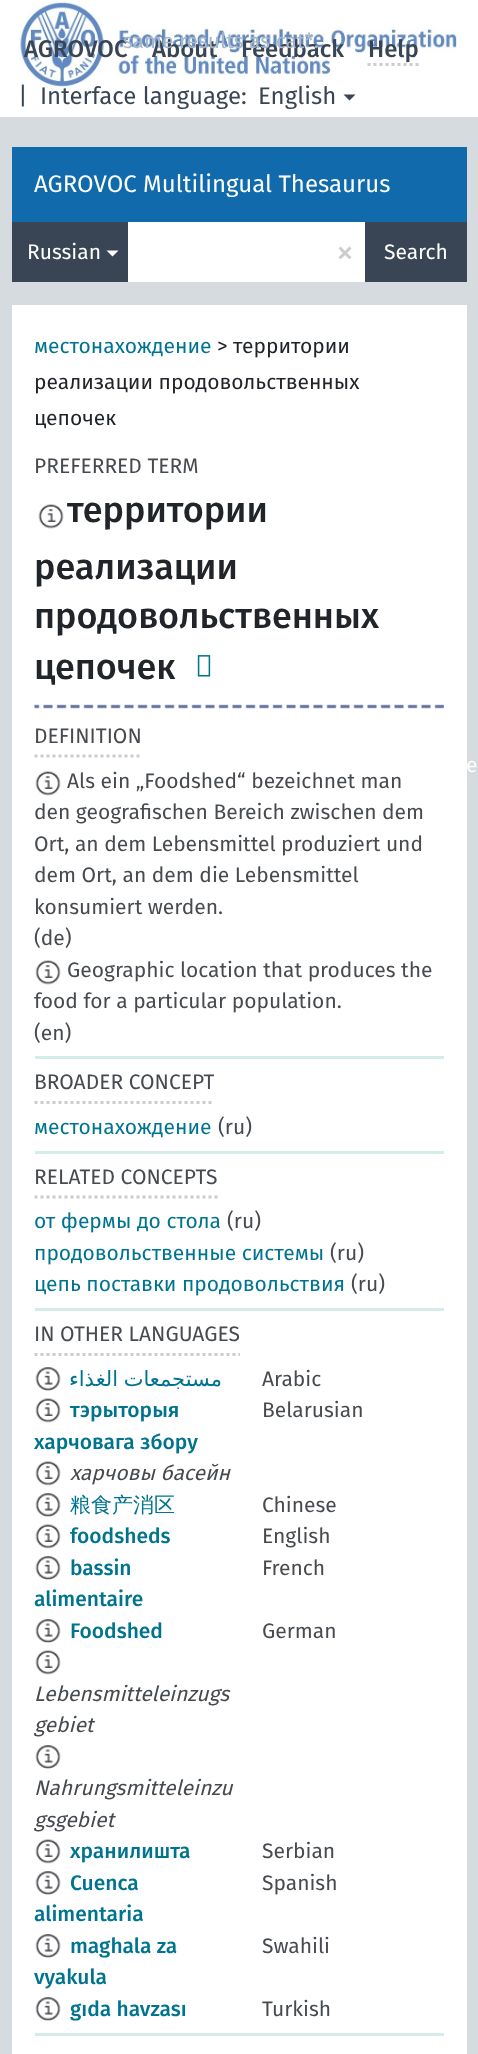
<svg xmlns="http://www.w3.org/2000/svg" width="478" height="2054">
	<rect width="100%" height="100%" fill="#D5DBDE" />
	<rect x="0" y="0" width="478" height="117" fill="#FFFFFF" />
	<image x="19" y="0" width="439" height="88" href="assets/img1.png" />
	<g font-family="Fira Sans" font-size="24" font-weight="500" fill="#394554">
		<text x="24" y="57">AGROVOC</text>
		<text x="152" y="57">About</text>
		<text x="241" y="57">Feedback</text>
	</g>
	<text x="123" y="48" font-family="Fira Sans" font-size="21" fill="#A7B7CB">same results as cat*.</text>
	<text x="368" y="57" font-family="Fira Sans" font-size="24" font-weight="500" fill="#394554">Help</text>
	<path d="M367.5 64.5H418.5" fill="none" stroke="#CCCCCC" stroke-width="3" stroke-dasharray="3 3" />
	<g font-family="Fira Sans" font-size="24" fill="#394554">
		<text x="18" y="104">|</text>
		<text x="40" y="104">Interface language:</text>
		<text x="258" y="104">English</text>
	</g>
	<path d="M343.5 94.5H355.5L349.5 100.5Z" fill="#394554" />
	<rect x="12" y="147" width="455" height="75" fill="#116AAB" />
	<text x="34" y="192" font-family="Fira Sans" font-size="24" fill="#FDFEFE">AGROVOC Multilingual Thesaurus</text>
	<rect x="12" y="222" width="116" height="60" fill="#394554" />
	<text x="27" y="259" font-family="Fira Sans" font-size="21" fill="#FDFEFE">Russian</text>
	<path d="M106.5 250.5H118.5L112.5 256.5Z" fill="#FFFFFF" />
	<rect x="128" y="222" width="237" height="60" fill="#FFFFFF" />
	<text x="336" y="264" font-family="Fira Sans" font-size="36" fill="#CCCCCC">×</text>
	<rect x="365" y="222" width="102" height="60" fill="#394554" />
	<text x="384" y="259" font-family="Fira Sans" font-size="21" fill="#FDFEFE">Search</text>
	<rect x="12" y="305" width="455" height="1749" fill="#FFFFFF" />
	<text x="34" y="353" font-family="Fira Sans" font-size="21" fill="#00748F">местонахождение</text>
	<g font-family="Fira Sans" font-size="21" fill="#212529">
		<text x="217" y="353">&gt; территории</text>
		<text x="34" y="389">реализации продовольственных</text>
		<text x="34" y="425">цепочек</text>
	</g>
	<text x="34" y="473" font-family="Fira Sans" font-size="21" fill="#474B4F">PREFERRED TERM</text>
	<image x="38" y="504" width="26" height="25" href="assets/img2.png" />
	<g font-family="Fira Sans" font-size="36" font-weight="500" fill="#212529">
		<text x="67" y="522">территории</text>
		<text x="34" y="579">реализации</text>
		<text x="34" y="628">продовольственных</text>
		<text x="34" y="679">цепочек</text>
	</g>
	<image x="197" y="655" width="14" height="22" href="assets/img3.png" />
	<image x="34" y="704" width="410" height="5" href="assets/img4.png" />
	<path d="M34.5 756H142.5" fill="none" stroke="#CCCCCC" stroke-width="3" stroke-dasharray="3 3" />
	<text x="34" y="743" font-family="Fira Sans" font-size="21" fill="#474B4F">DEFINITION</text>
	<text x="466" y="772" font-family="Fira Sans" font-size="21" fill="#FDFEFE">e</text>
	<rect x="35" y="1056" width="409" height="3" fill="#D4EDEB" />
	<image x="35" y="771" width="26" height="25" href="assets/img2.png" />
	<g font-family="Fira Sans" font-size="21" fill="#474B4F">
		<text x="67" y="788">Als ein „Foodshed“ bezeichnet man</text>
		<text x="34" y="819">den geografischen Bereich zwischen dem</text>
		<text x="34" y="851">Ort, an dem Lebensmittel produziert und</text>
		<text x="34" y="882">dem Ort, an dem die Lebensmittel</text>
		<text x="34" y="914">konsumiert werden.</text>
		<text x="34" y="945">(de)</text>
	</g>
	<image x="35" y="960" width="26" height="25" href="assets/img2.png" />
	<g font-family="Fira Sans" font-size="21" fill="#474B4F">
		<text x="67" y="977">Geographic location that produces the</text>
		<text x="34" y="1008">food for a particular population.</text>
		<text x="34" y="1040">(en)</text>
	</g>
	<path d="M34.5 1102.5H214.5" fill="none" stroke="#CCCCCC" stroke-width="3" stroke-dasharray="3 3" />
	<text x="34" y="1089" font-family="Fira Sans" font-size="21" fill="#474B4F">BROADER CONCEPT</text>
	<rect x="35" y="1151" width="409" height="3" fill="#D4EDEB" />
	<text x="34" y="1134" font-family="Fira Sans" font-size="21" fill="#00748F">местонахождение</text>
	<text x="218" y="1134" font-family="Fira Sans" font-size="21" fill="#474B4F">(ru)</text>
	<path d="M34.5 1197H217.5" fill="none" stroke="#CCCCCC" stroke-width="3" stroke-dasharray="3 3" />
	<text x="34" y="1184" font-family="Fira Sans" font-size="21" fill="#474B4F">RELATED CONCEPTS</text>
	<rect x="35" y="1308" width="409" height="3" fill="#D4EDEB" />
	<text x="34" y="1228" font-family="Fira Sans" font-size="21" fill="#00748F">от фермы до стола</text>
	<text x="227" y="1228" font-family="Fira Sans" font-size="21" fill="#474B4F">(ru)</text>
	<text x="34" y="1260" font-family="Fira Sans" font-size="21" fill="#00748F">продовольственные системы</text>
	<text x="330" y="1260" font-family="Fira Sans" font-size="21" fill="#474B4F">(ru)</text>
	<text x="34" y="1291" font-family="Fira Sans" font-size="21" fill="#00748F">цепь поставки продовольствия</text>
	<text x="351" y="1291" font-family="Fira Sans" font-size="21" fill="#474B4F">(ru)</text>
	<path d="M34.5 1354.5H240" fill="none" stroke="#CCCCCC" stroke-width="3" stroke-dasharray="3 3" />
	<text x="34" y="1341" font-family="Fira Sans" font-size="21" fill="#474B4F">IN OTHER LANGUAGES</text>
	<rect x="35" y="2033" width="409" height="3" fill="#D4EDEB" />
	<image x="35" y="1367" width="26" height="24" href="assets/img5.png" />
	<text x="222" y="1386" word-spacing="-1" font-family="DejaVu Sans" font-size="21" direction="rtl" fill="#00748F">مستجمعات الغذاء</text>
	<text x="262" y="1386" font-family="Fira Sans" font-size="21" fill="#474B4F">Arabic</text>
	<image x="35" y="1398" width="26" height="25" href="assets/img2.png" />
	<g font-family="Fira Sans" font-size="21" font-weight="500" fill="#00748F">
		<text x="70" y="1417">тэрыторыя</text>
		<text x="34" y="1449">харчовага збору</text>
	</g>
	<text x="262" y="1417" font-family="Fira Sans" font-size="21" fill="#474B4F">Belarusian</text>
	<image x="35" y="1461" width="26" height="25" href="assets/img2.png" />
	<text x="70" y="1480" font-family="Fira Sans" font-size="21" font-style="italic" fill="#474B4F">харчовы басейн</text>
	<image x="35" y="1493" width="26" height="24" href="assets/img5.png" />
	<text x="70" y="1512" font-family="WenQuanYi Zen Hei" font-size="21" font-weight="500" fill="#00748F">粮食产消区</text>
	<text x="262" y="1512" font-family="Fira Sans" font-size="21" fill="#474B4F">Chinese</text>
	<image x="35" y="1524" width="26" height="25" href="assets/img2.png" />
	<text x="70" y="1543" font-family="Fira Sans" font-size="21" font-weight="500" fill="#00748F">foodsheds</text>
	<text x="262" y="1543" font-family="Fira Sans" font-size="21" fill="#474B4F">English</text>
	<image x="35" y="1556" width="26" height="24" href="assets/img5.png" />
	<g font-family="Fira Sans" font-size="21" font-weight="500" fill="#00748F">
		<text x="70" y="1575">bassin</text>
		<text x="34" y="1606">alimentaire</text>
	</g>
	<text x="262" y="1575" font-family="Fira Sans" font-size="21" fill="#474B4F">French</text>
	<image x="35" y="1619" width="26" height="24" href="assets/img5.png" />
	<text x="70" y="1638" font-family="Fira Sans" font-size="21" font-weight="500" fill="#00748F">Foodshed</text>
	<text x="262" y="1638" font-family="Fira Sans" font-size="21" fill="#474B4F">German</text>
	<image x="35" y="1650" width="26" height="25" href="assets/img2.png" />
	<g font-family="Fira Sans" font-size="21" font-style="italic" fill="#474B4F">
		<text x="34" y="1701">Lebensmitteleinzugs</text>
		<text x="34" y="1732">gebiet</text>
	</g>
	<image x="35" y="1745" width="26" height="24" href="assets/img5.png" />
	<g font-family="Fira Sans" font-size="21" font-style="italic" fill="#474B4F">
		<text x="34" y="1795">Nahrungsmitteleinzu</text>
		<text x="34" y="1827">gsgebiet</text>
	</g>
	<image x="35" y="1839" width="26" height="25" href="assets/img2.png" />
	<text x="70" y="1858" font-family="Fira Sans" font-size="21" font-weight="500" fill="#00748F">хранилишта</text>
	<text x="262" y="1858" font-family="Fira Sans" font-size="21" fill="#474B4F">Serbian</text>
	<image x="35" y="1871" width="26" height="24" href="assets/img5.png" />
	<g font-family="Fira Sans" font-size="21" font-weight="500" fill="#00748F">
		<text x="70" y="1890">Cuenca</text>
		<text x="34" y="1921">alimentaria</text>
	</g>
	<text x="262" y="1890" font-family="Fira Sans" font-size="21" fill="#474B4F">Spanish</text>
	<image x="35" y="1934" width="26" height="24" href="assets/img5.png" />
	<g font-family="Fira Sans" font-size="21" font-weight="500" fill="#00748F">
		<text x="70" y="1953">maghala za</text>
		<text x="34" y="1984">vyakula</text>
	</g>
	<text x="262" y="1953" font-family="Fira Sans" font-size="21" fill="#474B4F">Swahili</text>
	<image x="35" y="1997" width="26" height="24" href="assets/img5.png" />
	<text x="70" y="2016" font-family="Fira Sans" font-size="21" font-weight="500" fill="#00748F">gıda havzası</text>
	<text x="262" y="2016" font-family="Fira Sans" font-size="21" fill="#474B4F">Turkish</text>
</svg>
